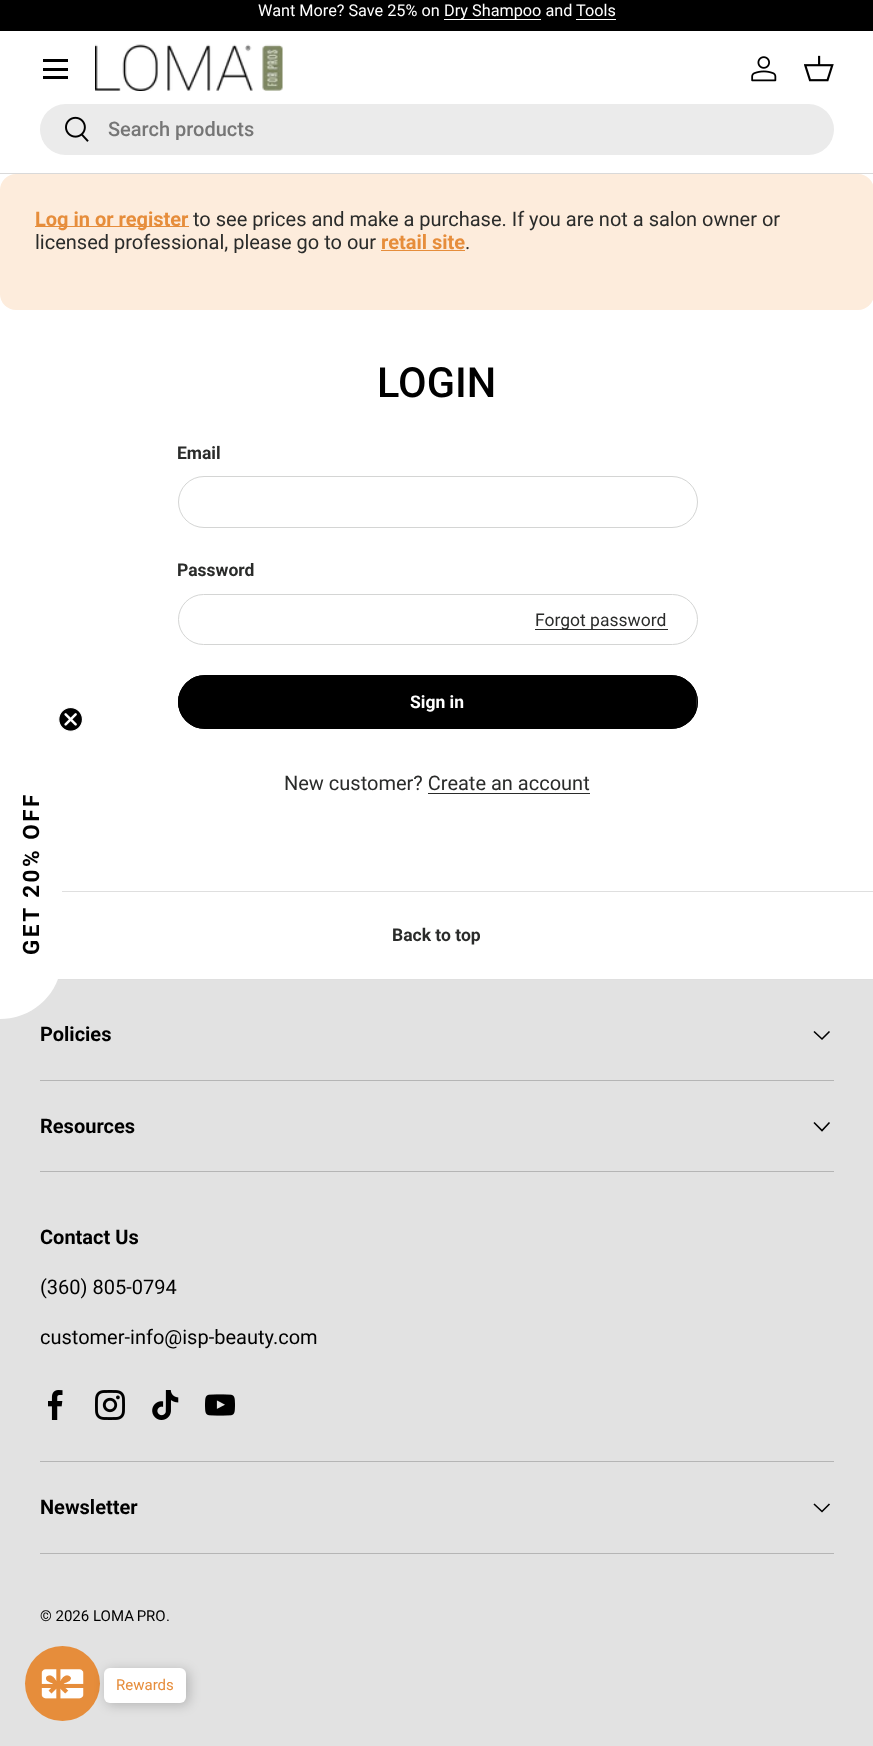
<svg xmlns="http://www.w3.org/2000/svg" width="873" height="1746">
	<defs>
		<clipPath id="clip1"><rect x="178" y="675" width="520" height="54" rx="27" /></clipPath>
		<linearGradient id="g1" gradientUnits="userSpaceOnUse" x1="-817" y1="518" x2="657" y2="886"><stop offset="0.6" stop-color="#2E2E2E" /><stop offset="0.6" stop-color="#000000" /><stop offset="1" stop-color="#000000" /></linearGradient>
	</defs>
	<rect width="100%" height="100%" fill="#FFFFFF" />
	<rect x="0" y="0" width="873" height="31" fill="#000000" />
	<text x="258" y="16" font-family="Roboto" font-size="16.25" fill="#FFFFFF">Want More? Save 25% on</text>
	<rect x="444" y="19" width="97" height="1" fill="#FFFFFF" />
	<g font-family="Roboto" font-size="16.25" fill="#FFFFFF">
		<text x="444" y="16">Dry Shampoo and</text>
		<text x="576" y="16">Tools</text>
	</g>
	<rect x="576" y="19" width="40" height="1" fill="#FFFFFF" />
	<rect x="0" y="173" width="873" height="1" fill="#D9D9D9" />
	<rect x="43" y="59" width="25" height="3" fill="#000000" />
	<rect x="43" y="76" width="25" height="3" fill="#000000" />
	<rect x="43" y="68" width="25" height="3" fill="#000000" />
	<image x="95" y="44" width="188" height="47" href="assets/img1.png" />
	<image x="751" y="56" width="26" height="26" href="assets/img2.png" />
	<image x="804" y="55" width="30" height="27" href="assets/img3.png" />
	<rect x="40" y="104" width="794" height="51" rx="25.5" fill="#EBEBEB" />
	<image x="65" y="116" width="24" height="26" href="assets/img4.png" />
	<text x="108" y="136" font-family="Roboto" font-size="20" font-weight="500" fill="#767676">Search products</text>
	<rect x="0" y="174" width="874" height="136" rx="16" fill="#FDECDC" />
	<rect x="35" y="226" width="154" height="1" fill="#E68D3B" />
	<text x="35" y="226" font-family="Roboto" font-size="20" font-weight="700" fill="#E68D3B">Log in or register</text>
	<g font-family="Roboto" font-size="20" fill="#2A2B2A">
		<text x="193" y="226">to see prices and make a purchase. If you are not a salon owner or</text>
		<text x="35" y="249">licensed professional, please go to our</text>
	</g>
	<text x="381" y="249" font-family="Roboto" font-size="20" font-weight="700" fill="#E68D3B">retail site</text>
	<rect x="381" y="250" width="84" height="1" fill="#E68D3B" />
	<text x="465" y="249" font-family="Roboto" font-size="20" fill="#2A2B2A">.</text>
	<text x="377" y="397" font-family="Roboto" font-size="41.5" font-weight="500" fill="#000000">LOGIN</text>
	<text x="177" y="459" font-family="Roboto" font-size="17.5" font-weight="700" fill="#2A2B2A">Email</text>
	<rect x="178.5" y="476.5" width="519" height="51" rx="25.5" fill="none" stroke="#D4D5D4" />
	<text x="177" y="576" font-family="Roboto" font-size="17.5" font-weight="700" fill="#2A2B2A">Password</text>
	<rect x="178.5" y="594.5" width="519" height="50" rx="25" fill="none" stroke="#D4D5D4" />
	<rect x="535" y="629" width="133" height="1" fill="#2A2B2A" />
	<text x="535" y="626" font-family="Roboto" font-size="17.5" fill="#2A2B2A">Forgot password</text>
	<rect x="178" y="675" width="520" height="54" rx="27" fill="#2E2E2E" />
	<g clip-path="url(#clip1)">
		<rect x="178" y="676" width="518" height="52" fill="url(#g1)" />
	</g>
	<rect x="178.5" y="675.5" width="519" height="53" rx="26.5" fill="none" stroke="#000000" />
	<text x="410" y="708" font-family="Roboto" font-size="17.5" font-weight="700" fill="#FFFFFF">Sign in</text>
	<text x="284" y="790" font-family="Roboto" font-size="20" fill="#2A2B2A">New customer? Create an account</text>
	<rect x="428" y="793" width="162" height="1" fill="#2A2B2A" />
	<rect x="57" y="979" width="816" height="1" fill="#DFDFDF" />
	<rect x="0" y="980" width="873" height="766" fill="#E2E2E2" />
	<path d="M0 1019V727C35 727 62 755 62 789V957C62 991 35 1019 0 1019Z" fill="#FFFFFF" />
	<image x="58" y="707" width="25" height="25" href="assets/img5.png" />
	<text x="39" y="955" transform="rotate(-90 39 955)" font-family="Roboto" font-size="22.5" font-weight="700" letter-spacing="2.5" fill="#000000">GET 20% OFF</text>
	<rect x="62" y="891" width="811" height="1" fill="#DFDFDF" />
	<text x="392" y="941" font-family="Roboto" font-size="17.5" font-weight="700" fill="#2A2B2A">Back to top</text>
	<rect x="40" y="1080" width="794" height="1" fill="#B5B5B5" />
	<text x="40" y="1041" font-family="Roboto" font-size="20" font-weight="700" fill="#000000">Policies</text>
	<path d="M829.5 1031.5L822 1039L814 1031.5" fill="none" stroke="#000000" stroke-width="1.6" />
	<rect x="40" y="1171" width="794" height="1" fill="#B5B5B5" />
	<text x="40" y="1133" font-family="Roboto" font-size="20" font-weight="700" fill="#000000">Resources</text>
	<path d="M829.5 1122.5L822 1130.5L814 1122.5" fill="none" stroke="#000000" stroke-width="1.6" />
	<text x="40" y="1244" font-family="Roboto" font-size="20" font-weight="700" fill="#000000">Contact Us</text>
	<g font-family="Roboto" font-size="20" fill="#000000">
		<text x="40" y="1294">(360) 805-0794</text>
		<text x="40" y="1344">customer-info@isp-beauty.com</text>
	</g>
	<image x="48" y="1390" width="15" height="30" href="assets/img6.png" />
	<image x="95" y="1390" width="30" height="30" href="assets/img7.png" />
	<image x="152" y="1390" width="27" height="30" href="assets/img8.png" />
	<image x="205" y="1394" width="30" height="22" href="assets/img9.png" />
	<rect x="40" y="1461" width="794" height="1" fill="#B5B5B5" />
	<rect x="40" y="1553" width="794" height="1" fill="#B5B5B5" />
	<text x="40" y="1514" font-family="Roboto" font-size="20" font-weight="700" fill="#000000">Newsletter</text>
	<path d="M829.5 1504L822 1511.5L814 1504" fill="none" stroke="#000000" stroke-width="1.6" />
	<g font-family="Roboto" font-size="15" fill="#000000">
		<text x="40" y="1621">© 2026</text>
		<text x="93" y="1621" word-spacing="-1">LOMA PRO</text>
		<text x="166" y="1621">.</text>
	</g>
	<circle cx="62.5" cy="1683.5" r="37.5" fill="#E68D3B" />
	<image x="41" y="1669" width="43" height="30" href="assets/img10.png" />
	<rect x="106" y="1670" width="83" height="35" rx="6" fill="#000000" fill-opacity="0.2" filter="blur(6px)" />
	<rect x="104" y="1668" width="82" height="35" rx="6" fill="#FFFFFF" />
	<text x="116" y="1690" font-family="Roboto" font-size="15" fill="#E68D3B">Rewards</text>
</svg>
